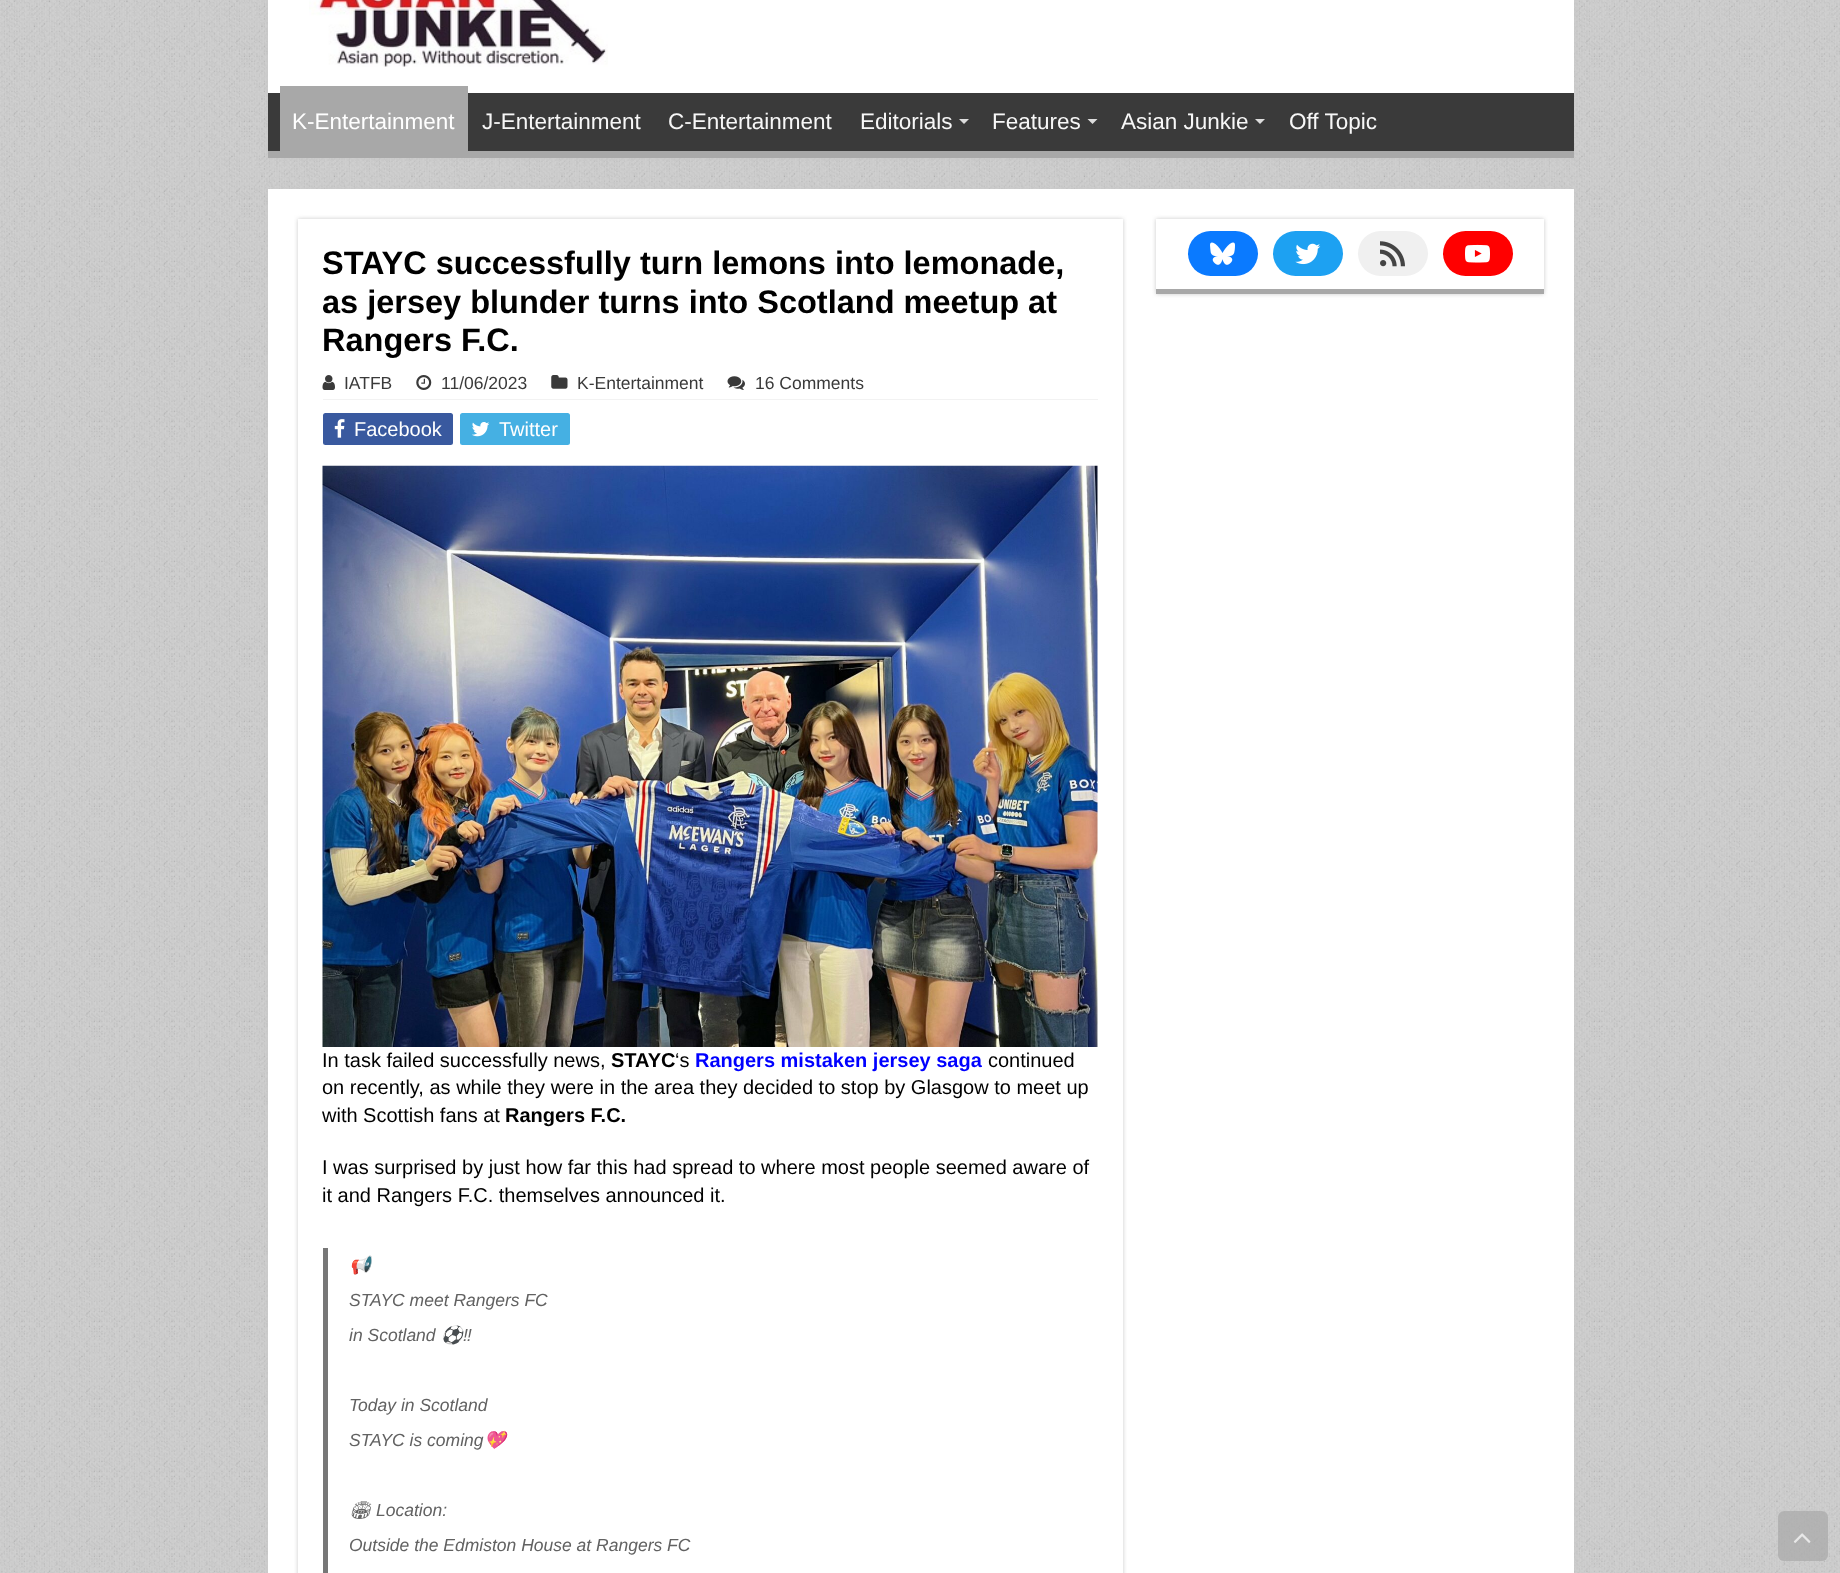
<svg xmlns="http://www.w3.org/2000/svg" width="1840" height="1573">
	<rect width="100%" height="100%" fill="#CACACA" />
	<image x="0" y="0" width="1840" height="1573" href="assets/img1.png" />
	<rect x="268" y="-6" width="1306" height="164" fill="#CACACA" filter="blur(2px)" />
	<rect x="268" y="0" width="1306" height="93" fill="#FFFFFF" />
	<image x="309" y="0" width="299" height="67" href="assets/img2.png" />
	<rect x="268" y="93" width="1306" height="58" fill="#3A3A3A" />
	<rect x="268" y="151" width="1306" height="7" fill="#A8A8A8" />
	<rect x="280" y="86" width="188" height="65" fill="#A8A8A8" />
	<text x="292" y="129" font-family="Liberation Sans" font-size="22.5" fill="#FFFFFF">K-Entertainment</text>
	<g font-family="Liberation Sans" font-size="22.5" fill="#F7F7F7">
		<text x="482" y="129">J-Entertainment</text>
		<text x="668" y="129">C-Entertainment</text>
		<text x="860" y="129">Editorials</text>
	</g>
	<path d="M959 119H969L964 124Z" fill="#DDDDDD" />
	<text x="992" y="129" font-family="Liberation Sans" font-size="22.5" fill="#F7F7F7">Features</text>
	<path d="M1087.5 119H1097.5L1092.5 124Z" fill="#DDDDDD" />
	<text x="1121" y="129" font-family="Liberation Sans" font-size="22.5" fill="#F7F7F7">Asian Junkie</text>
	<path d="M1255 119H1265L1260 124Z" fill="#DDDDDD" />
	<text x="1289" y="129" font-family="Liberation Sans" font-size="22.5" fill="#F7F7F7">Off Topic</text>
	<rect x="268" y="189" width="1306" height="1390" fill="#CACACA" filter="blur(2px)" />
	<rect x="268" y="189" width="1306" height="1384" fill="#FFFFFF" />
	<rect x="298" y="219" width="825" height="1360" fill="#CACACA" filter="blur(2px)" />
	<rect x="298" y="219" width="825" height="1354" fill="#FFFFFF" />
	<g font-family="Liberation Sans" font-size="32.5" font-weight="700" fill="#000000">
		<text x="322" y="274">STAYC successfully turn lemons into lemonade,</text>
		<text x="322" y="313">as jersey blunder turns into Scotland meetup at</text>
		<text x="322" y="351">Rangers F.C.</text>
	</g>
	<rect x="323" y="399" width="775" height="1" fill="#F2F2F2" />
	<image x="322" y="375" width="13" height="15" href="assets/img3.png" />
	<text x="344" y="389" font-family="Liberation Sans" font-size="17.5" fill="#3A3A3A">IATFB</text>
	<image x="416" y="375" width="16" height="15" href="assets/img4.png" />
	<text x="441" y="389" font-family="Liberation Sans" font-size="17.5" fill="#3A3A3A">11/06/2023</text>
	<image x="551" y="375" width="17" height="14" href="assets/img5.png" />
	<text x="577" y="389" font-family="Liberation Sans" font-size="17.5" fill="#3A3A3A">K-Entertainment</text>
	<image x="727" y="376" width="18" height="14" href="assets/img6.png" />
	<text x="755" y="389" font-family="Liberation Sans" font-size="17.5" fill="#3A3A3A">16 Comments</text>
	<rect x="323" y="413" width="130" height="32" rx="2.5" fill="#39599F" />
	<image x="334" y="419" width="11" height="19" href="assets/img7.png" />
	<text x="354" y="436" font-family="Liberation Sans" font-size="20" fill="#FFFFFF">Facebook</text>
	<rect x="460" y="413" width="110" height="32" rx="2.5" fill="#45B0E3" />
	<image x="472" y="422" width="18" height="15" href="assets/img8.png" />
	<text x="499" y="436" font-family="Liberation Sans" font-size="20" fill="#FFFFFF">Twitter</text>
	<image x="322" y="465" width="776" height="582" href="assets/img9.png" />
	<text x="322" y="1067" font-family="Liberation Sans" font-size="20" fill="#000000">In task failed successfully news,</text>
	<text x="611" y="1067" font-family="Liberation Sans" font-size="20" font-weight="700" fill="#000000">STAYC</text>
	<text x="675" y="1067" font-family="Liberation Sans" font-size="20" fill="#000000">‘s</text>
	<text x="695" y="1067" font-family="Liberation Sans" font-size="20" font-weight="700" fill="#0000FF">Rangers mistaken jersey saga</text>
	<g font-family="Liberation Sans" font-size="20" fill="#000000">
		<text x="988" y="1067">continued</text>
		<text x="322" y="1094">on recently, as while they were in the area they decided to stop by Glasgow to meet up</text>
		<text x="322" y="1122">with Scottish fans at</text>
	</g>
	<text x="505" y="1122" font-family="Liberation Sans" font-size="20" font-weight="700" fill="#000000">Rangers F.C.</text>
	<g font-family="Liberation Sans" font-size="20" fill="#000000">
		<text x="322" y="1174">I was surprised by just how far this had spread to where most people seemed aware of</text>
		<text x="322" y="1202">it and Rangers F.C. themselves announced it.</text>
	</g>
	<rect x="323" y="1248" width="5" height="325" fill="#777777" />
	<text x="349" y="1271" font-family="Noto Color Emoji" font-size="17.5" font-style="italic" fill="#626262">📢</text>
	<g font-family="Liberation Sans" font-size="17.5" font-style="italic" fill="#626262">
		<text x="349" y="1306">STAYC meet Rangers FC</text>
		<text x="349" y="1341">in Scotland</text>
	</g>
	<text x="441" y="1341" font-family="Noto Color Emoji" font-size="17.5" font-style="italic" fill="#626262">⚽</text>
	<g font-family="Liberation Sans" font-size="17.5" font-style="italic" fill="#626262">
		<text x="463" y="1341">‼</text>
		<text x="349" y="1411">Today in Scotland</text>
		<text x="349" y="1446">STAYC is coming</text>
	</g>
	<text x="484" y="1446" font-family="Noto Color Emoji" font-size="17.5" font-style="italic" fill="#626262">💖</text>
	<text x="349" y="1516" font-family="Noto Emoji" font-size="17.5" font-style="italic" fill="#626262">🏟</text>
	<g font-family="Liberation Sans" font-size="17.5" font-style="italic" fill="#626262">
		<text x="376" y="1516">Location:</text>
		<text x="349" y="1551">Outside the Edmiston House at Rangers FC</text>
	</g>
	<rect x="1156" y="219" width="388" height="75" fill="#CACACA" filter="blur(2px)" />
	<rect x="1156" y="219" width="388" height="70" fill="#FFFFFF" />
	<rect x="1156" y="289" width="388" height="5" fill="#A8A8A8" />
	<rect x="1188" y="231" width="70" height="45" rx="22.5" fill="#0A7AFF" />
	<image x="1210" y="242" width="25" height="23" href="assets/img10.png" />
	<rect x="1273" y="231" width="70" height="45" rx="22.5" fill="#1DA1F2" />
	<image x="1295" y="243" width="26" height="22" href="assets/img11.png" />
	<rect x="1358" y="231" width="70" height="45" rx="22.5" fill="#F0F0F0" />
	<image x="1380" y="241" width="25" height="26" href="assets/img12.png" />
	<rect x="1443" y="231" width="70" height="45" rx="22.5" fill="#FF0000" />
	<image x="1465" y="244" width="25" height="19" href="assets/img13.png" />
	<rect x="1778" y="1511" width="50" height="50" rx="6" fill="#A8A8A8" fill-opacity="0.7" />
	<image x="1793" y="1533" width="18" height="10" href="assets/img14.png" />
</svg>
